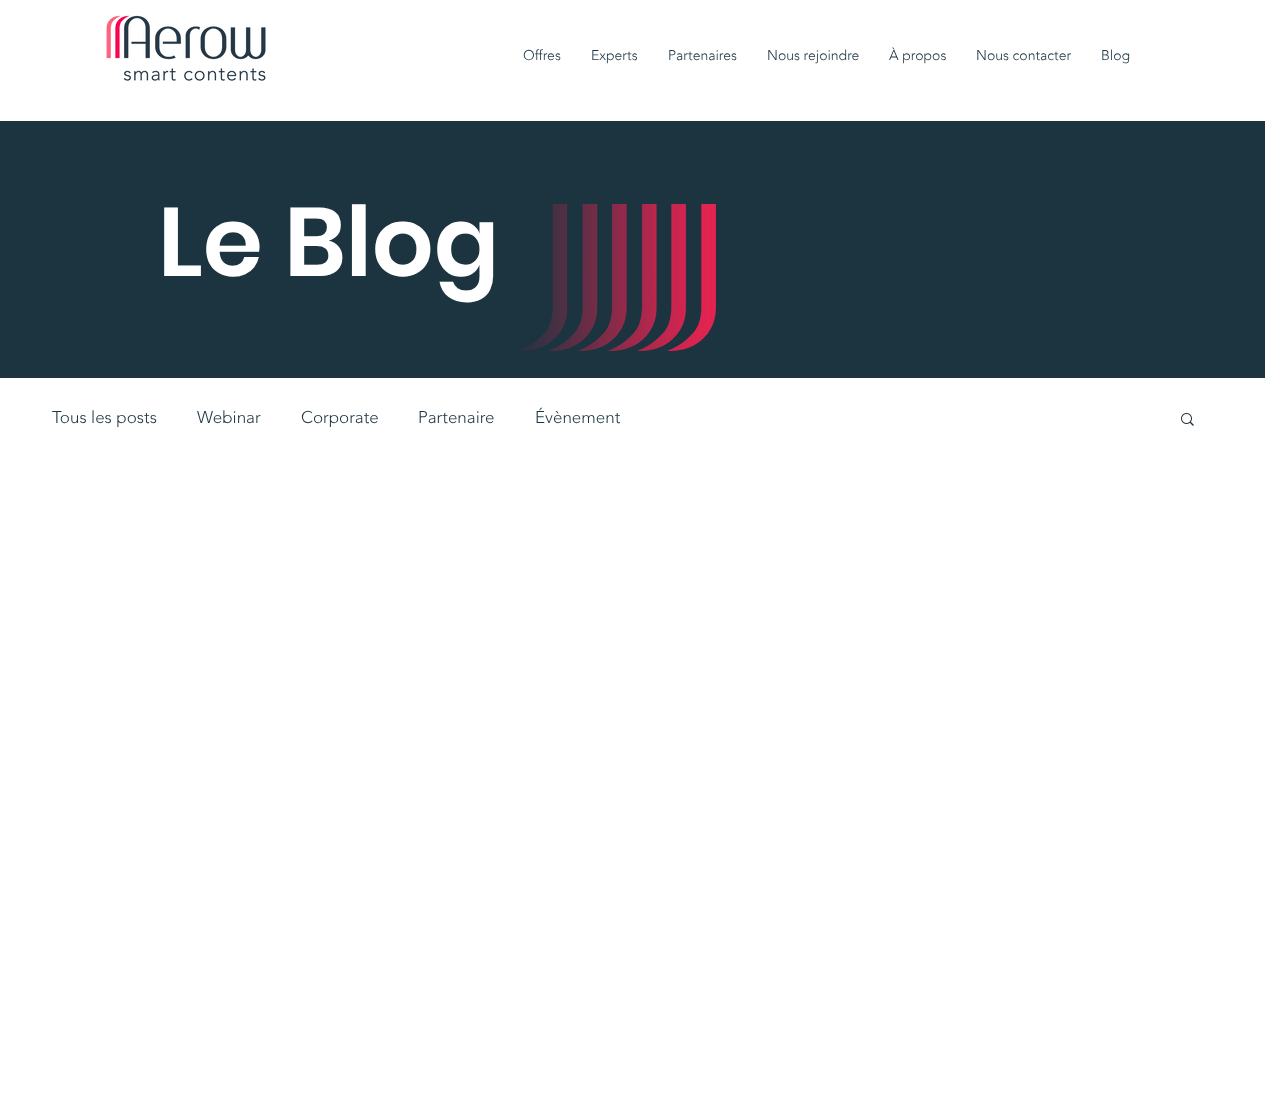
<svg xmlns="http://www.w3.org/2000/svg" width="1265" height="1120">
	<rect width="100%" height="100%" fill="#FFFFFF" />
	<image x="106" y="15" width="160" height="66" href="assets/img1.png" />
	<g font-family="'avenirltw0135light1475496'" font-size="14" font-weight="300" fill="#1B3440">
		<text x="523" y="60">Offres</text>
		<text x="591" y="60">Experts</text>
		<text x="668" y="60">Partenaires</text>
		<text x="767" y="60">Nous rejoindre</text>
		<text x="889" y="60">À propos</text>
		<text x="976" y="60">Nous contacter</text>
		<text x="1101" y="60">Blog</text>
	</g>
	<rect x="0" y="121" width="1265" height="257" fill="#1B3440" />
	<text x="158" y="276" font-family="Poppins" font-size="97" font-weight="600" fill="#FFFFFF">Le Blog</text>
	<image x="519" y="204" width="197" height="147" href="assets/img2.png" />
	<g font-family="'avenirltw0135light1475496'" font-size="17" font-weight="300" fill="#1B3440">
		<text x="52" y="423">Tous les posts</text>
		<text x="197" y="423">Webinar</text>
		<text x="301" y="423">Corporate</text>
		<text x="418" y="423">Partenaire</text>
		<text x="535" y="423">Évènement</text>
	</g>
	<image x="1181" y="413" width="13" height="13" href="assets/img3.png" />
</svg>
